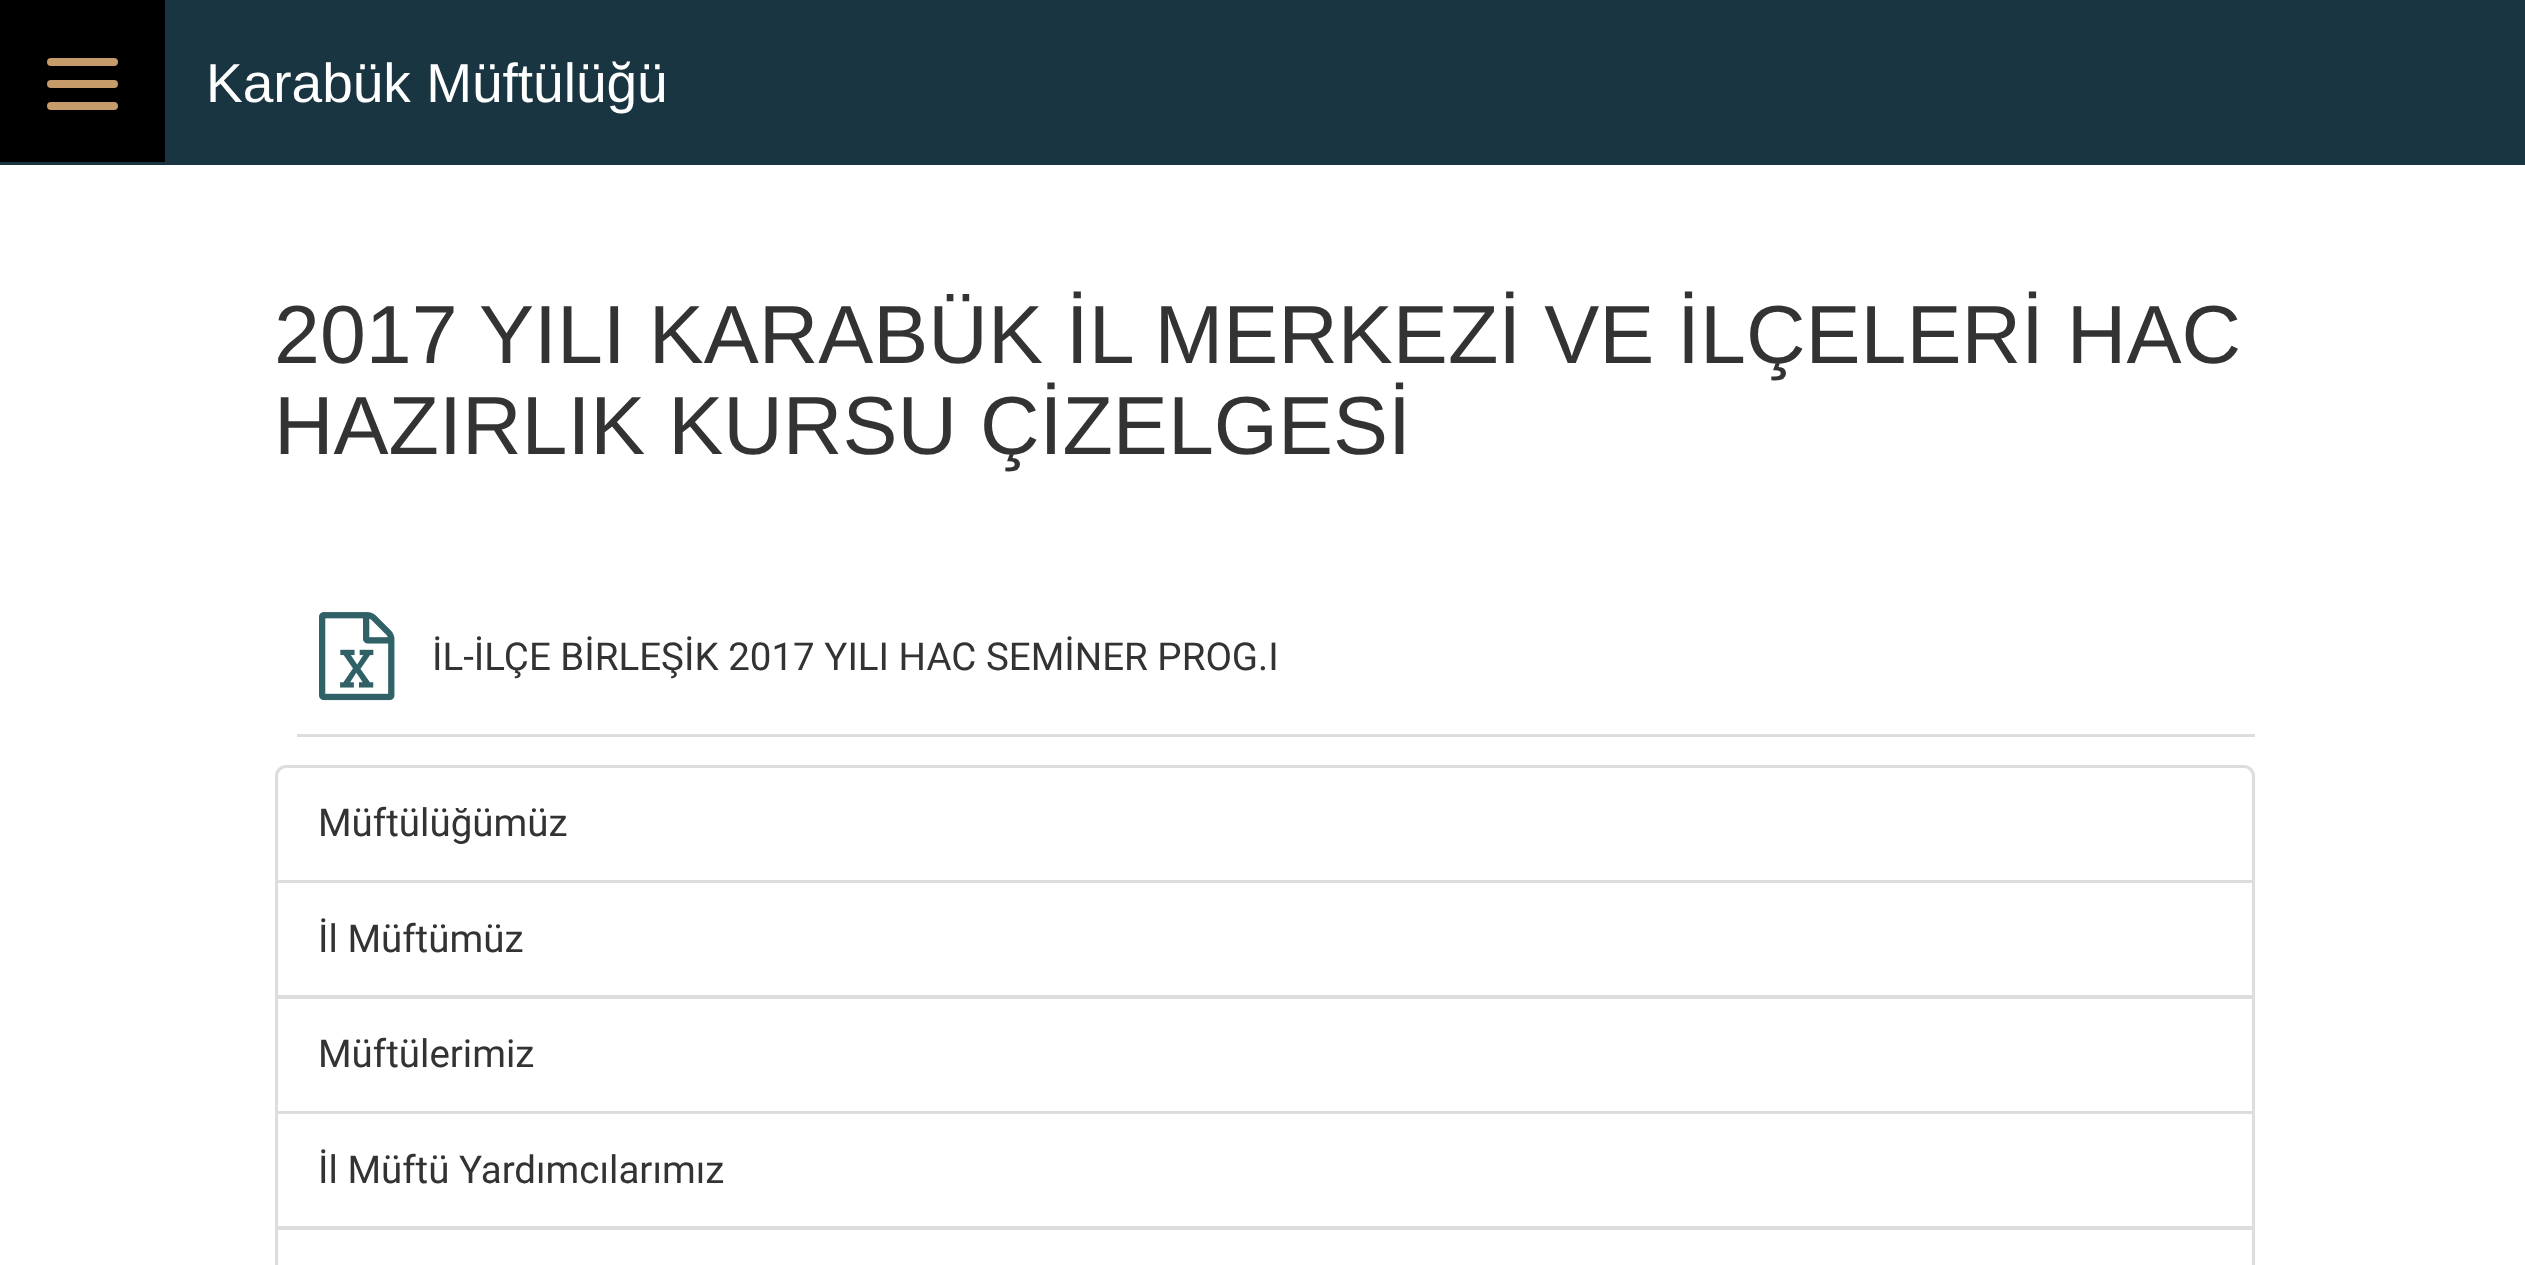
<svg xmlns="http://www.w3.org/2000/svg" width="2525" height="1265">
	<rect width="100%" height="100%" fill="#FFFFFF" />
	<rect x="0" y="0" width="2525" height="165" fill="#193541" />
	<rect x="0" y="0" width="165" height="162" fill="#000000" />
	<rect x="47" y="58" width="71" height="8" rx="4" fill="#C59B6A" />
	<rect x="47" y="80" width="71" height="8" rx="4" fill="#C59B6A" />
	<rect x="47" y="102" width="71" height="8" rx="4" fill="#C59B6A" />
	<text x="206" y="102" font-family="Liberation Sans" font-size="55" fill="#FFFFFF">Karabük Müftülüğü</text>
	<g font-family="Liberation Sans" font-size="82.5" fill="#333333">
		<text x="274" y="363">2017 YILI KARABÜK İL MERKEZİ VE İLÇELERİ HAC</text>
		<text x="274" y="454">HAZIRLIK KURSU ÇİZELGESİ</text>
	</g>
	<rect x="297" y="734" width="1958" height="3" fill="#DDDDDD" />
	<image x="319" y="612" width="76" height="89" href="assets/img1.png" />
	<text x="432" y="670" font-family="Roboto" font-size="38.5" fill="#333333">İL-İLÇE BİRLEŞİK 2017 YILI HAC SEMİNER PROG.I</text>
	<path d="M286 766.5H2244C2249 766.5 2253.5 771 2253.5 776V881.5H276.5V776C276.5 771 281 766.5 286 766.5Z" fill="none" stroke="#DDDDDD" stroke-width="3" />
	<text x="318" y="836" font-family="Roboto" font-size="38.5" fill="#333333">Müftülüğümüz</text>
	<rect x="276.5" y="881.5" width="1977" height="115" fill="none" stroke="#DDDDDD" stroke-width="3" />
	<text x="318" y="952" font-family="Roboto" font-size="38.5" fill="#333333">İl Müftümüz</text>
	<rect x="276.5" y="997.5" width="1977" height="115" fill="none" stroke="#DDDDDD" stroke-width="3" />
	<text x="318" y="1067" font-family="Roboto" font-size="38.5" fill="#333333">Müftülerimiz</text>
	<rect x="276.5" y="1112.5" width="1977" height="115" fill="none" stroke="#DDDDDD" stroke-width="3" />
	<text x="318" y="1183" font-family="Roboto" font-size="38.5" fill="#333333">İl Müftü Yardımcılarımız</text>
	<rect x="276.5" y="1228.5" width="1977" height="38" fill="none" stroke="#DDDDDD" stroke-width="3" />
</svg>
